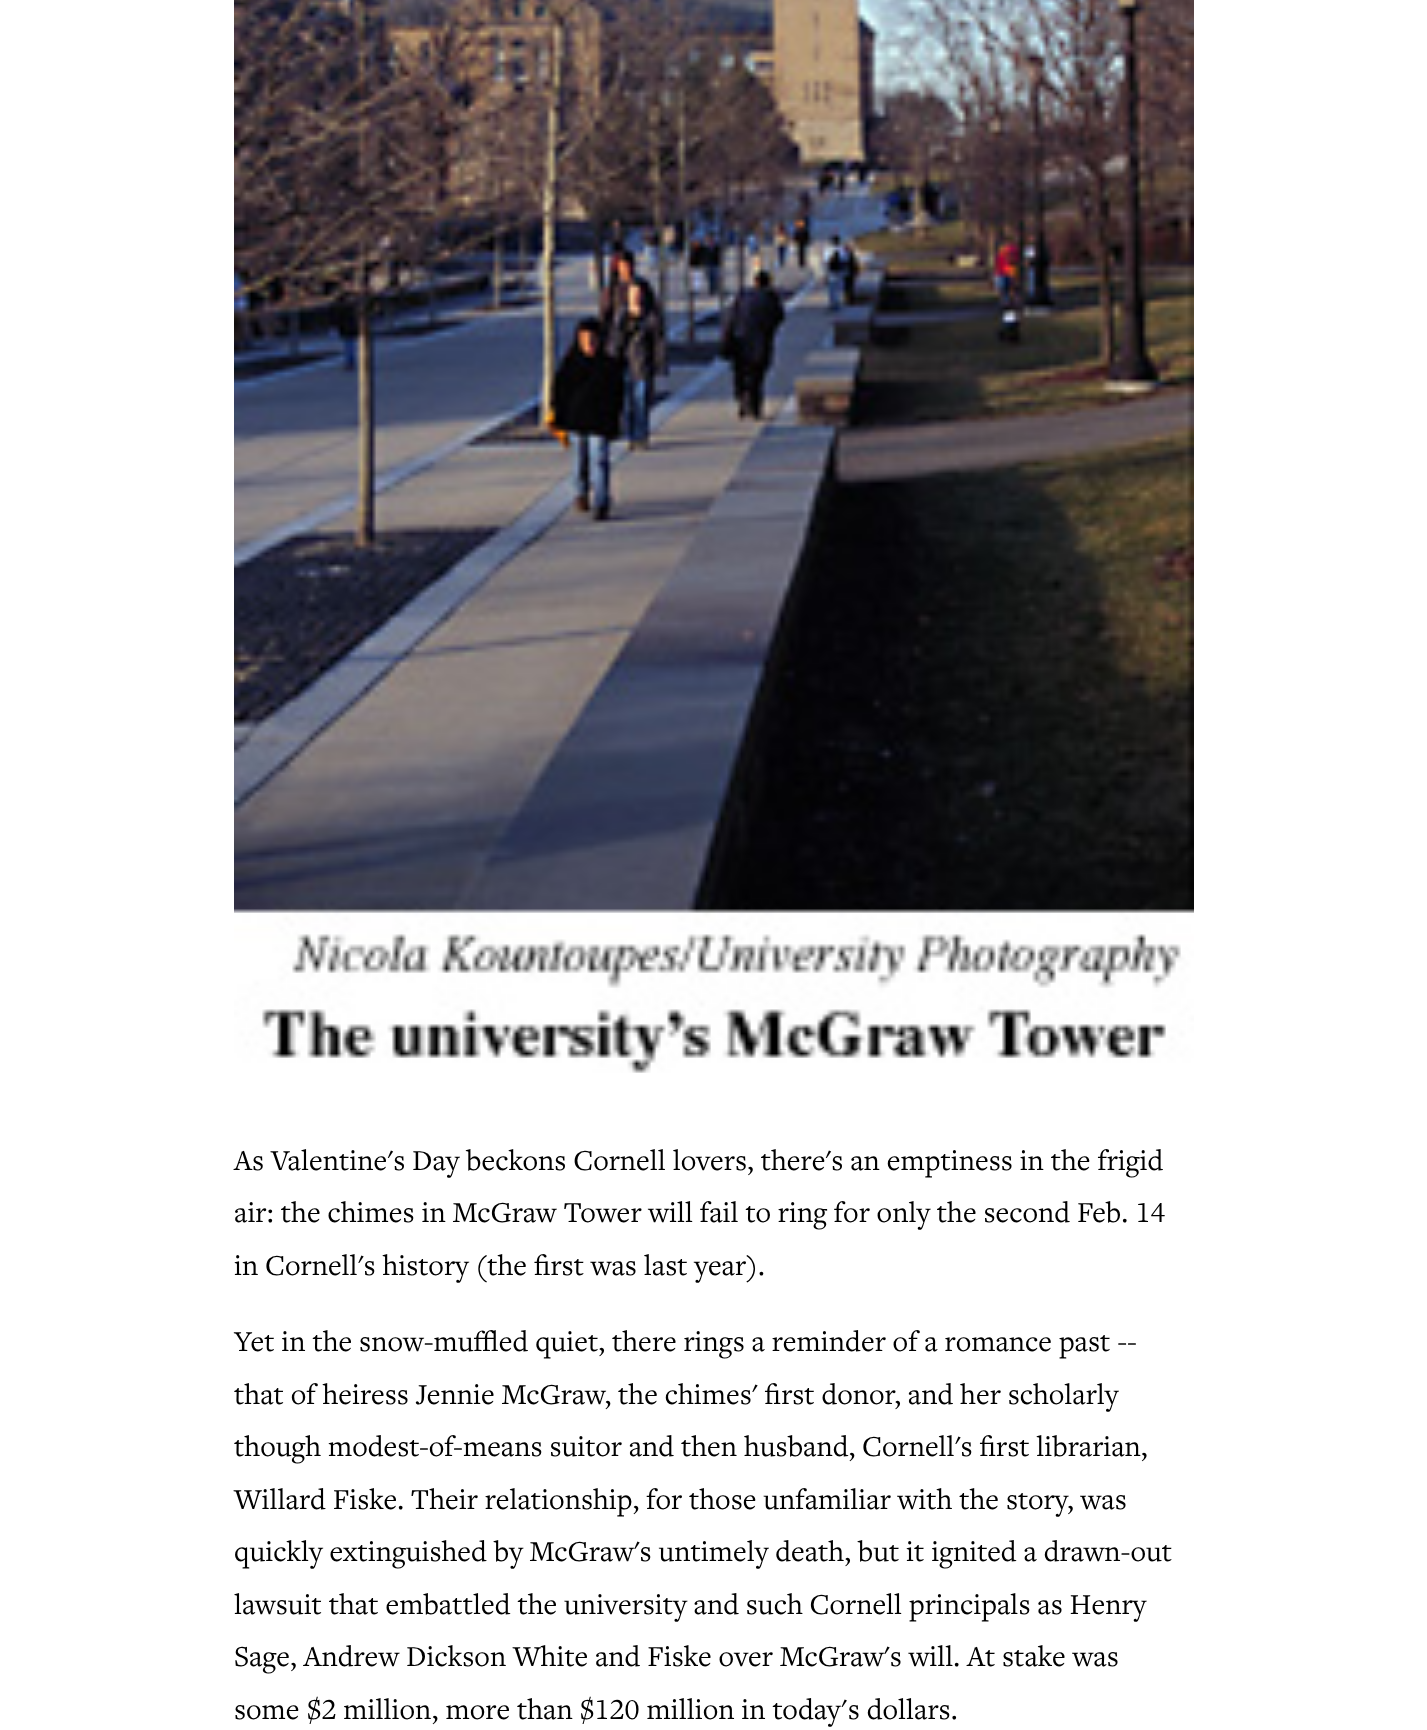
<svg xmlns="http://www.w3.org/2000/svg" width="1427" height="1730">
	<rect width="100%" height="100%" fill="#FFFFFF" />
	<image x="234" y="0" width="960" height="1073" href="assets/img1.png" />
	<text x="234" y="1170" font-family="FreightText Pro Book" font-size="30" fill="#000000">As Valentine's Day beckons Cornell lovers, there's an emptiness in the frigid</text>
	<text x="234" y="1222" font-family="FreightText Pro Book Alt" font-size="30" fill="#000000">air: the chimes in McGraw Tower will fail to ring for only the second Feb. 14</text>
	<g font-family="FreightText Pro Book" font-size="30" fill="#000000">
		<text x="234" y="1275">in Cornell's history (the first was last year).</text>
		<text x="234" y="1351">Yet in the snow-muffled quiet, there rings a reminder of a romance past --</text>
		<text x="234" y="1404">that of heiress Jennie McGraw, the chimes' first donor, and her scholarly</text>
		<text x="234" y="1456">though modest-of-means suitor and then husband, Cornell's first librarian,</text>
		<text x="234" y="1509">Willard Fiske. Their relationship, for those unfamiliar with the story, was</text>
		<text x="234" y="1561">quickly extinguished by McGraw's untimely death, but it ignited a drawn-out</text>
		<text x="234" y="1614">lawsuit that embattled the university and such Cornell principals as Henry</text>
		<text x="234" y="1666">Sage, Andrew Dickson White and Fiske over McGraw's will. At stake was</text>
	</g>
	<text x="234" y="1719" font-family="FreightText Pro Book Alt" font-size="30" fill="#000000">some $2 million, more than $120 million in today's dollars.</text>
</svg>
